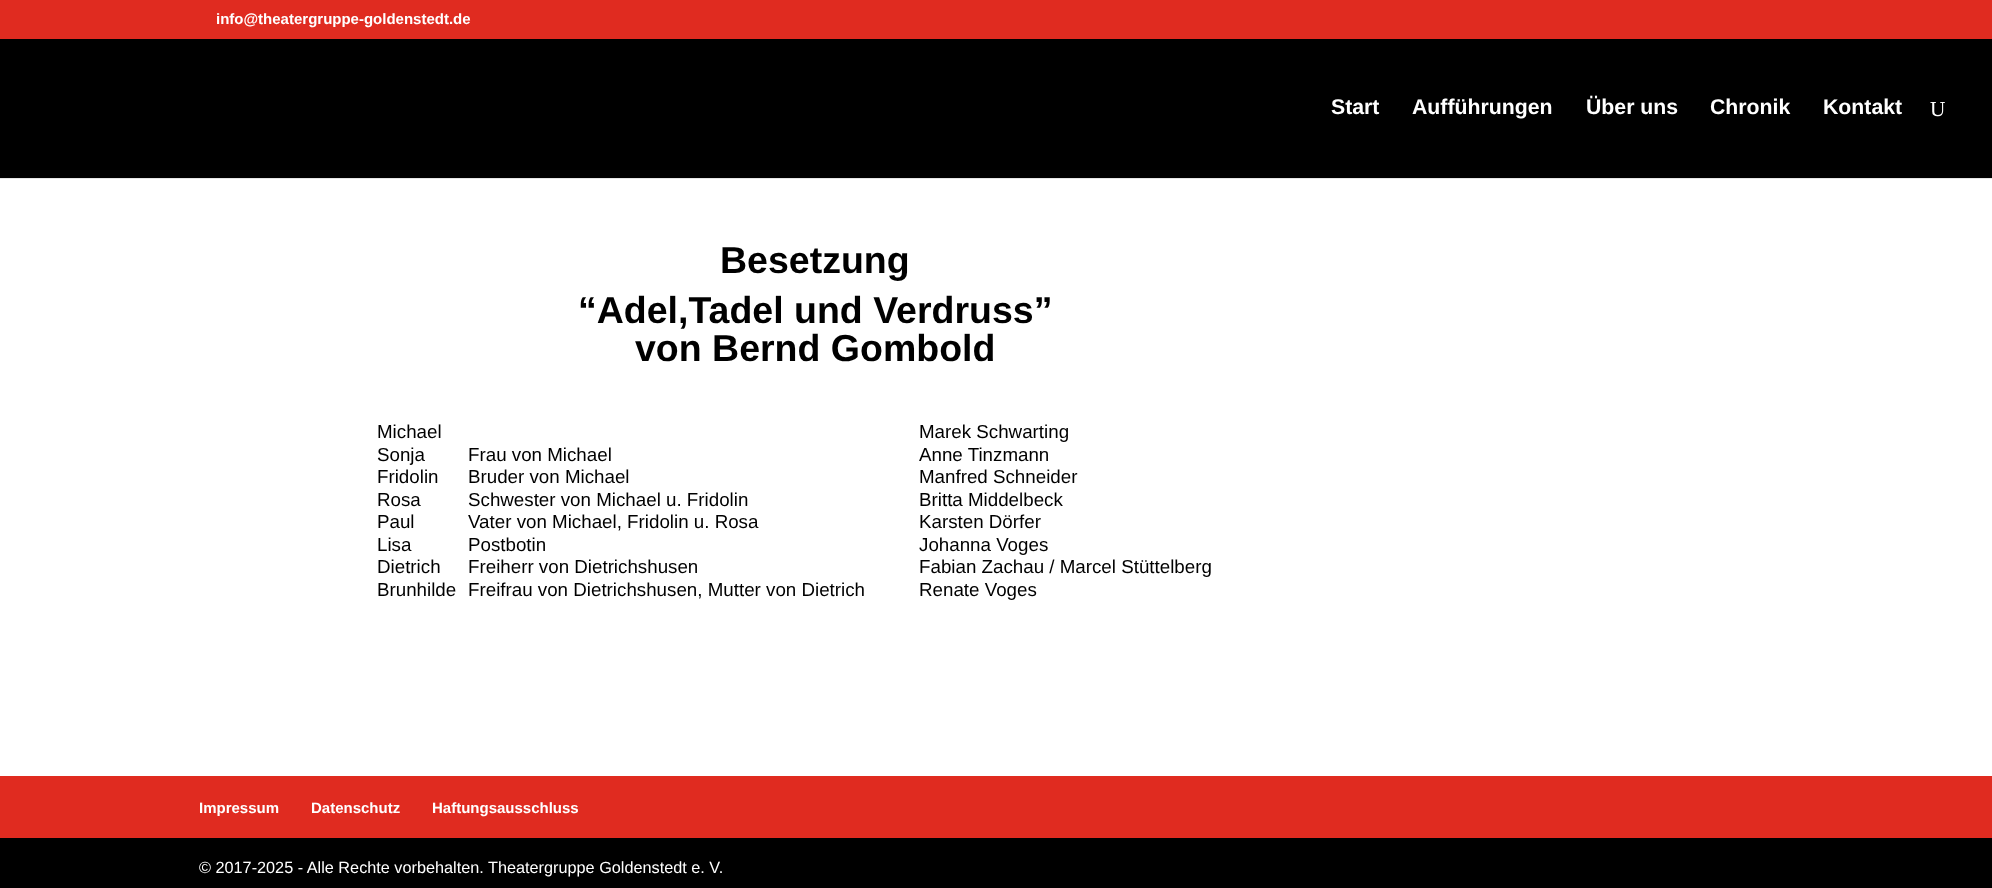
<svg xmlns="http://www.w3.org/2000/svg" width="1992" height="888">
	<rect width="100%" height="100%" fill="#FFFFFF" />
	<rect x="0" y="0" width="1992" height="39" fill="#E02B20" />
	<text x="216" y="24" font-family="Liberation Sans" font-size="15" font-weight="700" fill="#FFFFFF">info@theatergruppe-goldenstedt.de</text>
	<path d="M0 178V179H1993V39H1992V178Z" fill="#E6E6E6" />
	<rect x="0" y="39" width="1992" height="139" fill="#000000" />
	<g font-family="Liberation Sans" font-size="21.25" font-weight="700" fill="#FFFFFF">
		<text x="1331" y="114">Start</text>
		<text x="1412" y="114">Aufführungen</text>
		<text x="1586" y="114">Über uns</text>
		<text x="1710" y="114">Chronik</text>
		<text x="1823" y="114">Kontakt</text>
	</g>
	<text x="1930" y="116" font-family="Liberation Serif" font-size="21.25" fill="#FFFFFF">U</text>
	<g font-family="Liberation Sans" font-size="37.5" font-weight="700" fill="#000000">
		<text x="720" y="273">Besetzung</text>
		<text x="578" y="323">“Adel,Tadel und Verdruss”</text>
		<text x="635" y="361">von Bernd Gombold</text>
	</g>
	<g font-family="Liberation Sans" font-size="18.75" fill="#000000">
		<text x="377" y="438">Michael</text>
		<text x="919" y="438">Marek Schwarting</text>
		<text x="377" y="461">Sonja</text>
		<text x="468" y="461">Frau von Michael</text>
		<text x="919" y="461">Anne Tinzmann</text>
		<text x="377" y="483">Fridolin</text>
		<text x="468" y="483">Bruder von Michael</text>
		<text x="919" y="483">Manfred Schneider</text>
		<text x="377" y="506">Rosa</text>
		<text x="468" y="506">Schwester von Michael u. Fridolin</text>
		<text x="919" y="506">Britta Middelbeck</text>
		<text x="377" y="528">Paul</text>
		<text x="468" y="528">Vater von Michael, Fridolin u. Rosa</text>
		<text x="919" y="528">Karsten Dörfer</text>
		<text x="377" y="551">Lisa</text>
		<text x="468" y="551">Postbotin</text>
		<text x="919" y="551">Johanna Voges</text>
		<text x="377" y="573">Dietrich</text>
		<text x="468" y="573">Freiherr von Dietrichshusen</text>
		<text x="919" y="573">Fabian Zachau / Marcel Stüttelberg</text>
		<text x="377" y="596">Brunhilde</text>
		<text x="468" y="596">Freifrau von Dietrichshusen, Mutter von Dietrich</text>
		<text x="919" y="596">Renate Voges</text>
	</g>
	<rect x="0" y="776" width="1992" height="62" fill="#E02B20" />
	<g font-family="Liberation Sans" font-size="15" font-weight="700" fill="#FFFFFF">
		<text x="199" y="813">Impressum</text>
		<text x="311" y="813">Datenschutz</text>
		<text x="432" y="813">Haftungsausschluss</text>
	</g>
	<rect x="0" y="838" width="1992" height="50" fill="#000000" />
	<text x="199" y="873" font-family="Liberation Sans" font-size="16.25" fill="#FFFFFF">© 2017-2025 - Alle Rechte vorbehalten. Theatergruppe Goldenstedt e. V.</text>
</svg>
